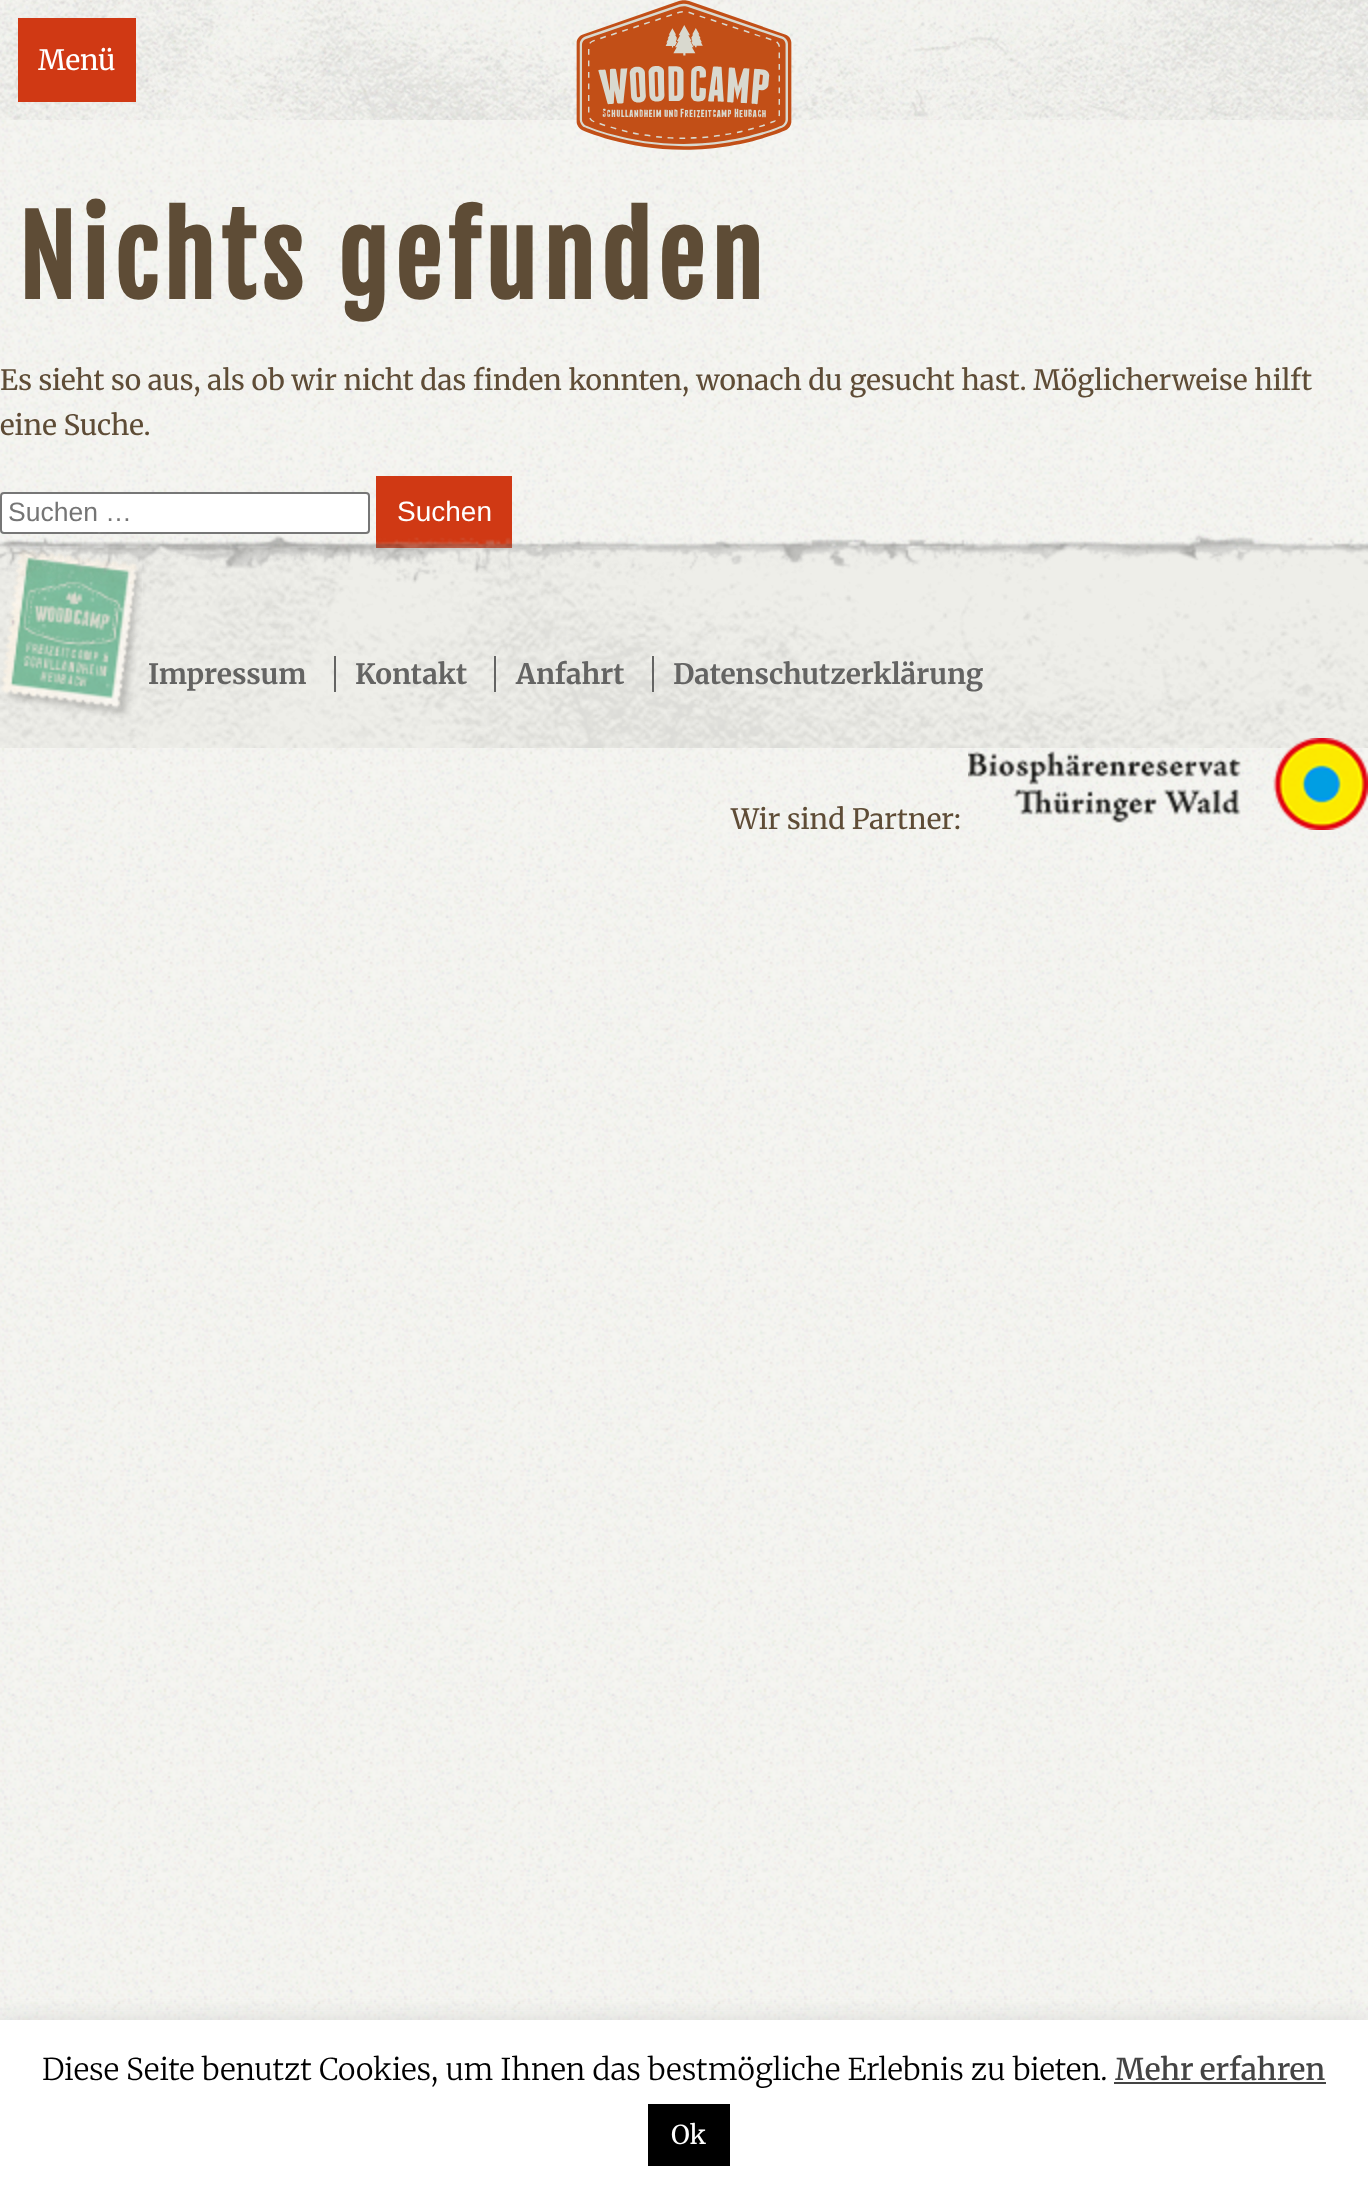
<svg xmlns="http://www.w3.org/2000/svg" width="1368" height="2190">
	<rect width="100%" height="100%" fill="#FFFFFF" />
	<image x="0" y="0" width="1368" height="2020" href="assets/img1.png" />
	<image x="0" y="0" width="1368" height="120" href="assets/img2.png" />
	<rect x="18" y="18" width="118" height="84" fill="#D03914" />
	<text x="38" y="70" font-family="Merriweather" font-size="28" fill="#FFFFFF">Menü</text>
	<image x="576" y="0" width="216" height="150" href="assets/img3.png" />
	<text x="18" y="299" font-family="Fjalla One" font-size="105" font-weight="700" letter-spacing="6.25" fill="#5E4C36">Nichts gefunden</text>
	<g font-family="Merriweather" font-size="28" fill="#5E4C36">
		<text x="0" y="390">Es sieht so aus, als ob wir nicht das finden konnten, wonach du gesucht hast. Möglicherweise hilft</text>
		<text x="0" y="435">eine Suche.</text>
	</g>
	<rect x="1" y="493" width="368" height="40" rx="3" fill="#FFFFFF" stroke="#767676" stroke-width="2" />
	<text x="8" y="521" font-family="Liberation Sans" font-size="26.5" fill="#757575">Suchen …</text>
	<rect x="376" y="476" width="136" height="72" fill="#D03914" />
	<text x="397" y="521" font-family="Liberation Sans" font-size="28" fill="#FFFFFF">Suchen</text>
	<rect x="0" y="548" width="1368" height="200" fill="#EFEFEA" />
	<image x="0" y="548" width="1368" height="200" href="assets/img4.png" />
	<image x="1" y="550" width="141" height="168" href="assets/img6.png" />
	<image x="0" y="532" width="1368" height="52" href="assets/img5.png" />
	<g font-family="Merriweather" font-size="28" font-weight="700" fill="#646463">
		<text x="148" y="684">Impressum</text>
		<text x="355" y="684">Kontakt</text>
	</g>
	<rect x="334" y="656" width="2" height="36" fill="#646463" />
	<text x="516" y="684" font-family="Merriweather" font-size="28" font-weight="700" fill="#646463">Anfahrt</text>
	<rect x="494" y="656" width="2" height="36" fill="#646463" />
	<text x="673" y="684" font-family="Merriweather" font-size="28" font-weight="700" fill="#646463">Datenschutzerklärung</text>
	<rect x="652" y="656" width="2" height="36" fill="#646463" />
	<text x="731" y="829" font-family="Merriweather" font-size="28" fill="#5E4C36">Wir sind Partner:</text>
	<image x="968" y="738" width="400" height="92" href="assets/img7.png" />
	<rect x="0" y="2018" width="1368" height="170" fill="#ACABAB" fill-opacity="0.3" filter="blur(10px)" />
	<rect x="0" y="2020" width="1368" height="170" fill="#FFFFFF" />
	<text x="42" y="2080" font-family="Merriweather" font-size="30" font-weight="300" fill="#000000">Diese Seite benutzt Cookies, um Ihnen das bestmögliche Erlebnis zu bieten.</text>
	<text x="1115" y="2080" word-spacing="-1" font-family="Merriweather" font-size="30" font-weight="500" fill="#444444">Mehr erfahren</text>
	<rect x="1114" y="2082" width="212" height="2" fill="#444444" />
	<rect x="648" y="2104" width="82" height="62" fill="#000000" />
	<text x="671" y="2144" font-family="Merriweather" font-size="26" fill="#FFFFFF">Ok</text>
</svg>
